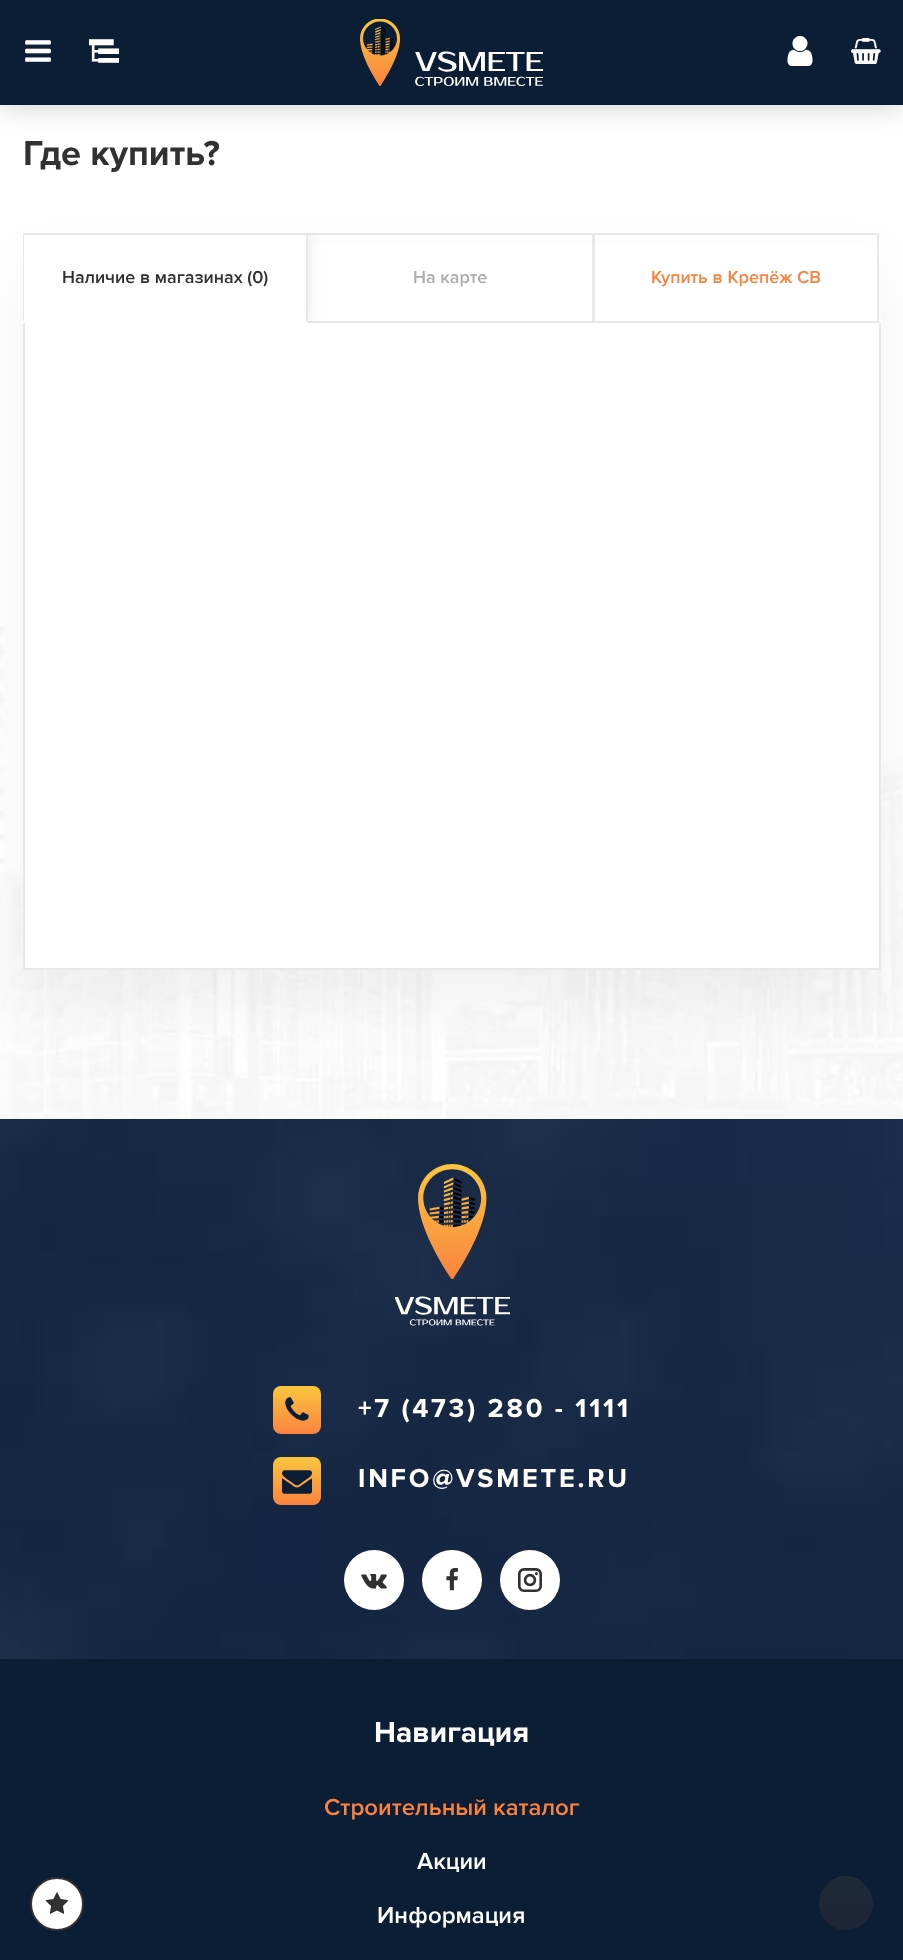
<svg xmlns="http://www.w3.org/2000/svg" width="903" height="1960">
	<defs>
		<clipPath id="clip1"><rect x="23" y="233" width="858" height="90" /></clipPath>
		<clipPath id="clip2"><rect x="23" y="233" width="858" height="90" /></clipPath>
		<linearGradient id="g1" gradientUnits="userSpaceOnUse" x1="297" y1="1386" x2="297" y2="1434"><stop offset="0" stop-color="#FAC63F" /><stop offset="1" stop-color="#FA833F" /></linearGradient>
		<linearGradient id="g2" gradientUnits="userSpaceOnUse" x1="297" y1="1457" x2="297" y2="1505"><stop offset="0" stop-color="#FAC63F" /><stop offset="1" stop-color="#FA833F" /></linearGradient>
		<linearGradient id="g3" gradientUnits="userSpaceOnUse" x1="846" y1="1877" x2="846" y2="1931"><stop offset="0" stop-color="#1E2A37" /><stop offset="1" stop-color="#1E2537" /></linearGradient>
	</defs>
	<rect width="100%" height="100%" fill="#FFFFFF" />
	<rect x="0" y="0" width="903" height="105" fill="#000000" fill-opacity="0.2" filter="blur(15px)" />
	<rect x="0" y="0" width="903" height="105" fill="#0C1D36" />
	<g font-family="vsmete" font-size="30" fill="#FFFFFF">
		<text x="23" y="66">o</text>
		<text x="89" y="66">k</text>
	</g>
	<image x="360" y="19" width="183" height="67" href="assets/img1.png" />
	<g font-family="vsmete" font-size="30" fill="#FFFFFF">
		<text x="785" y="66">m</text>
		<text x="851" y="66">j</text>
	</g>
	<image x="0" y="625" width="903" height="494" href="assets/img2.png" />
	<text x="23" y="165" font-family="Proxima Nova" font-size="36" font-weight="700" fill="#313131">Где купить?</text>
	<rect x="23" y="270" width="858" height="737" fill="#000000" fill-opacity="0.05" filter="blur(30px)" />
	<rect x="25" y="323" width="854" height="645" fill="#FFFFFF" />
	<rect x="879" y="299" width="2" height="24" fill="#FCFCFC" />
	<rect x="308" y="245" width="284" height="76" fill="#FFFFFF" />
	<rect x="307" y="234" width="286" height="88" fill="none" stroke="#E8E8E8" stroke-width="2" />
	<rect x="879" y="323" width="2" height="646" fill="#E8E8E8" />
	<rect x="23" y="968" width="858" height="2" fill="#E8E8E8" />
	<rect x="23" y="323" width="2" height="646" fill="#E8E8E8" />
	<g clip-path="url(#clip1)">
		<rect x="23" y="233" width="285" height="90" fill="#000000" fill-opacity="0.1" filter="blur(7.5px)" />
	</g>
	<rect x="23" y="235" width="285" height="88" fill="#FFFFFF" />
	<rect x="23" y="233" width="285" height="2" fill="#E8E8E8" />
	<path d="M308 232V322L306 321V234Z" fill="#E8E8E8" />
	<g clip-path="url(#clip2)">
		<path d="M22 322V232L24 234V321Z" fill="#E8E8E8" />
	</g>
	<text x="62" y="283" font-family="Proxima Nova" font-size="18" font-weight="600" fill="#313131">Наличие в магазинах (0)</text>
	<text x="413" y="283" font-family="Proxima Nova" font-size="18" font-weight="600" fill="#ADADAD">На карте</text>
	<rect x="595" y="245" width="282" height="76" fill="#FFFFFF" />
	<rect x="594" y="234" width="284" height="88" fill="none" stroke="#E8E8E8" stroke-width="2" />
	<text x="651" y="283" font-family="Proxima Nova" font-size="18" font-weight="600" fill="#FA833F">Купить в Крепёж СВ</text>
	<rect x="0" y="1659" width="903" height="301" fill="#0C1D36" />
	<circle cx="57" cy="1904" r="26" fill="#FFFFFF" stroke="#313131" stroke-width="2" />
	<text x="45" y="1916" font-family="vsmete" font-size="24" fill="#313131">b</text>
	<image x="0" y="1119" width="903" height="540" href="assets/img3.png" />
	<image x="395" y="1164" width="115" height="162" href="assets/img4.png" />
	<rect x="273" y="1386" width="48" height="48" rx="8" fill="url(#g1)" />
	<text x="282" y="1425" font-family="vsmete" font-size="30" letter-spacing="2.75" fill="#0C1D36">t</text>
	<text x="358" y="1417" font-family="Proxima Nova" font-size="27" font-weight="700" letter-spacing="2.75" fill="#FFFFFF">+7 (473) 280 - 1111</text>
	<rect x="273" y="1457" width="48" height="48" rx="8" fill="url(#g2)" />
	<text x="282" y="1496" font-family="vsmete" font-size="30" letter-spacing="2.75" fill="#0C1D36">u</text>
	<text x="358" y="1487" font-family="Proxima Nova" font-size="27" font-weight="700" letter-spacing="2.75" fill="#FFFFFF">INFO@VSMETE.RU</text>
	<circle cx="374" cy="1580" r="30" fill="#FFFFFF" />
	<text x="362" y="1592" font-family="vsmete" font-size="24" fill="#313131">r</text>
	<circle cx="452" cy="1580" r="30" fill="#FFFFFF" />
	<text x="440" y="1592" font-family="vsmete" font-size="24" fill="#313131">q</text>
	<circle cx="530" cy="1580" r="30" fill="#FFFFFF" />
	<text x="518" y="1592" font-family="vsmete" font-size="24" fill="#313131">s</text>
	<text x="374" y="1742" font-family="Proxima Nova" font-size="30" font-weight="700" fill="#FFFFFF">Навигация</text>
	<text x="324" y="1815" font-family="Proxima Nova" font-size="24" font-weight="600" fill="#FA833F">Строительный каталог</text>
	<g font-family="Proxima Nova" font-size="24" font-weight="600" fill="#FFFFFF">
		<text x="417" y="1869">Акции</text>
		<text x="377" y="1923">Информация</text>
	</g>
	<path d="M846 1930C831 1930 819 1918 819 1904C819 1889 831 1876 846 1876C861 1876 873 1889 873 1904C873 1918 861 1930 846 1930Z" fill="url(#g3)" />
</svg>
